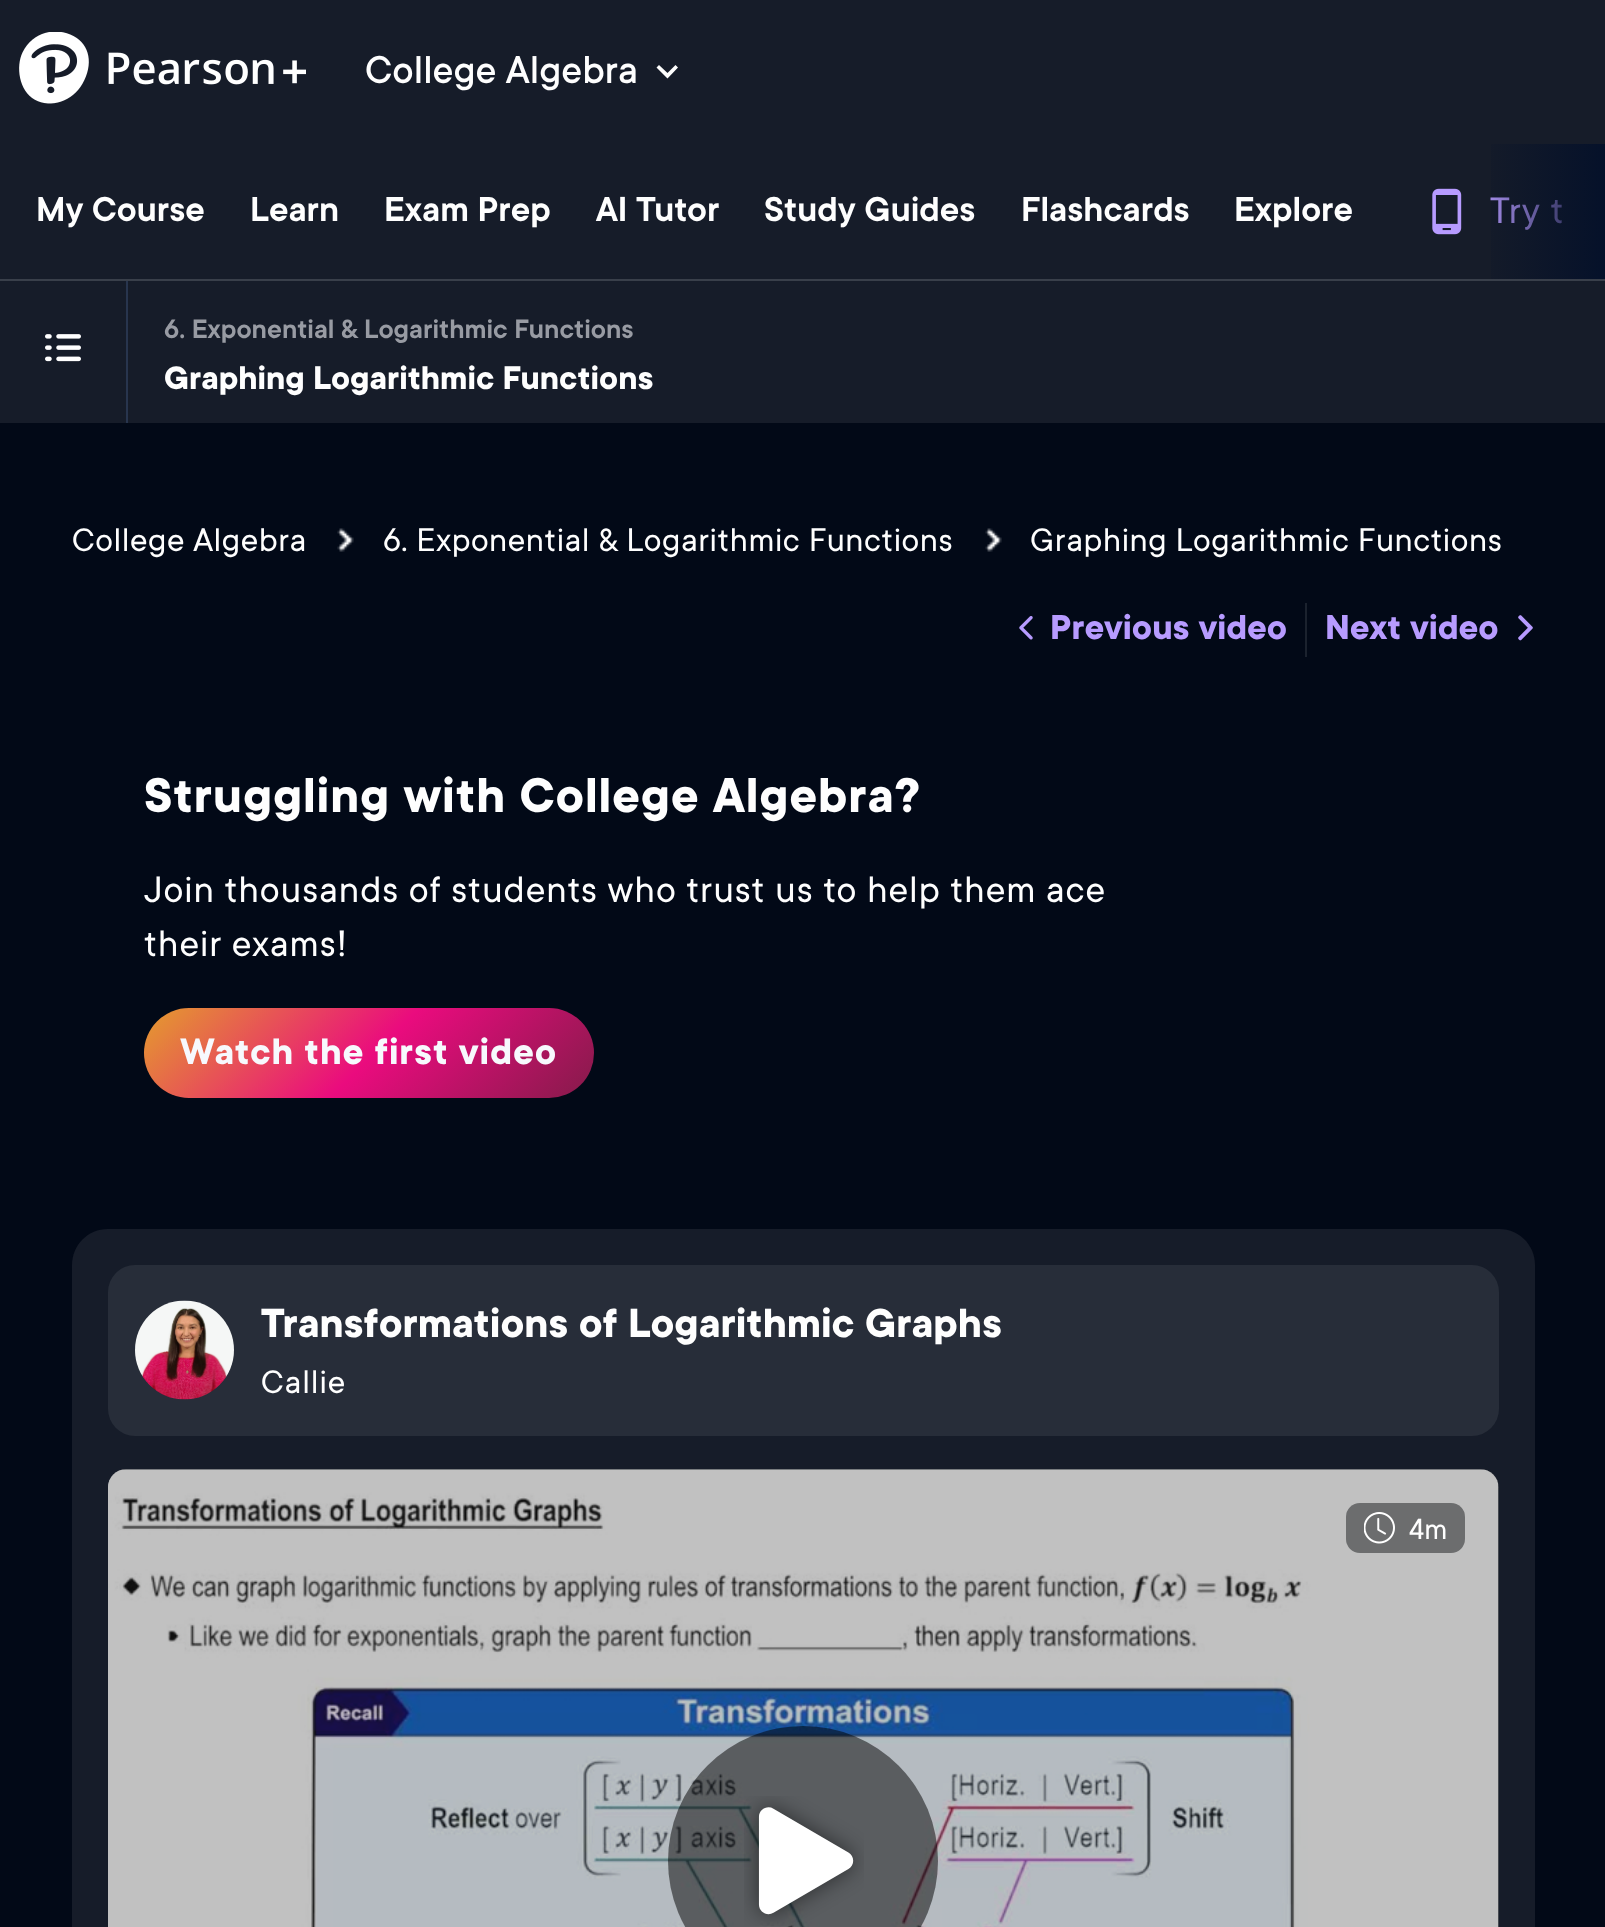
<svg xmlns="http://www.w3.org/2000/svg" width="1605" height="1927">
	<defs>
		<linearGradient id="g1" gradientUnits="userSpaceOnUse" x1="1472" y1="212" x2="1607" y2="212"><stop offset="0" stop-color="#05112A" stop-opacity="0" /><stop offset="1" stop-color="#05112A" /></linearGradient>
		<linearGradient id="g2" gradientUnits="userSpaceOnUse" x1="234" y1="918" x2="504" y2="1188"><stop offset="0" stop-color="#E49D2D" /><stop offset="0.51" stop-color="#EA0B7E" /><stop offset="1" stop-color="#851B4A" /></linearGradient>
	</defs>
	<rect width="100%" height="100%" fill="#020917" />
	<rect x="0" y="0" width="1605" height="279" fill="#161C29" />
	<image x="19" y="32" width="70" height="72" href="assets/img1.png" />
	<image x="108" y="52" width="198" height="33" href="assets/img2.png" />
	<text x="365" y="83" font-family="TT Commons" font-size="42.75" font-weight="500" fill="#FEFEFE">College Algebra</text>
	<path d="M659 65L667.5 73L675.5 65L678 67.5L667.5 78.5L656.5 67.5Z" fill="#FEFEFE" />
	<rect x="0" y="279" width="1605" height="2" fill="#393F4A" />
	<g font-family="TT Commons" font-size="38.25" font-weight="600" fill="#FEFEFE">
		<text x="36" y="221">My Course</text>
		<text x="250" y="221">Learn</text>
		<text x="384" y="221">Exam Prep</text>
		<text x="596" y="221">AI Tutor</text>
		<text x="764" y="221">Study Guides</text>
		<text x="1021" y="221">Flashcards</text>
		<text x="1234" y="221">Explore</text>
	</g>
	<text x="1490" y="223" font-family="TT Commons" font-size="40.5" letter-spacing="0.9" fill="#B79BFF">Try t</text>
	<rect x="1491" y="144" width="114" height="135" fill="url(#g1)" />
	<image x="1432" y="188" width="30" height="47" href="assets/img3.png" />
	<rect x="0" y="281" width="1605" height="142" fill="#161C29" />
	<image x="45" y="334" width="36" height="28" href="assets/img4.png" />
	<rect x="126" y="281" width="2" height="142" fill="#28354E" />
	<text x="164" y="338" font-family="TT Commons" font-size="29.25" font-weight="600" fill="#989BA3">6. Exponential &amp; Logarithmic Functions</text>
	<text x="164" y="389" font-family="TT Commons" font-size="36" font-weight="700" fill="#FEFEFE">Graphing Logarithmic Functions</text>
	<text x="72" y="551" font-family="TT Commons" font-size="36" letter-spacing="0.55" fill="#FEFEFE">College Algebra</text>
	<image x="337" y="528" width="17" height="24" href="assets/img5.png" />
	<text x="383" y="551" font-family="TT Commons" font-size="36" letter-spacing="0.55" fill="#FEFEFE">6. Exponential &amp; Logarithmic Functions</text>
	<image x="985" y="528" width="17" height="24" href="assets/img6.png" />
	<text x="1030" y="551" font-family="TT Commons" font-size="36" letter-spacing="0.55" fill="#FEFEFE">Graphing Logarithmic Functions</text>
	<image x="1019" y="616" width="14" height="24" href="assets/img7.png" />
	<text x="1050" y="639" font-family="TT Commons" font-size="38.25" font-weight="700" fill="#B79BFF">Previous video</text>
	<rect x="1305" y="603" width="2" height="54" fill="#1B222E" />
	<text x="1325" y="639" font-family="TT Commons" font-size="38.25" font-weight="700" fill="#B79BFF">Next video</text>
	<image x="1518" y="615" width="15" height="26" href="assets/img8.png" />
	<text x="144" y="812" font-family="TT Commons" font-size="54" font-weight="700" letter-spacing="0.9" fill="#FEFEFE">Struggling with College Algebra?</text>
	<g font-family="TT Commons" font-size="40.5" letter-spacing="0.9" fill="#FEFEFE">
		<text x="144" y="902">Join thousands of students who trust us to help them ace</text>
		<text x="144" y="956">their exams!</text>
	</g>
	<rect x="144" y="1008" width="450" height="90" rx="45" fill="url(#g2)" />
	<text x="180" y="1064" font-family="TT Commons" font-size="40.5" font-weight="700" letter-spacing="0.9" fill="#F7F9FD">Watch the first video</text>
	<path d="M108 1229H1499C1519 1229 1535 1245 1535 1265V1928H72V1265C72 1245 88 1229 108 1229Z" fill="#161C29" />
	<rect x="108" y="1265" width="1391" height="171" rx="27" fill="#272D39" />
	<image x="135" y="1300" width="99" height="100" href="assets/img9.png" />
	<text x="261" y="1337" font-family="TT Commons" font-size="45" font-weight="700" fill="#FEFEFE">Transformations of Logarithmic Graphs</text>
	<text x="261" y="1393" font-family="TT Commons" font-size="36" letter-spacing="0.9" fill="#FEFEFE">Callie</text>
	<image x="108" y="1469" width="1391" height="458" href="assets/img10.png" />
	<path d="M126 1469H1481C1491 1469 1499 1477 1499 1487V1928H108V1487C108 1477 116 1469 126 1469Z" fill="#323232" fill-opacity="0.3" />
	<rect x="1346" y="1503" width="119" height="50" rx="14" fill="#6C6D6E" />
	<image x="1364" y="1512" width="31" height="32" href="assets/img11.png" />
	<text x="1409" y="1539" font-family="TT Commons" font-size="32" fill="#FEFEFE">4m</text>
	<circle cx="803" cy="1861" r="135" fill="#000000" fill-opacity="0.5" />
	<image x="744" y="1796" width="120" height="130" href="assets/img12.png" />
</svg>
